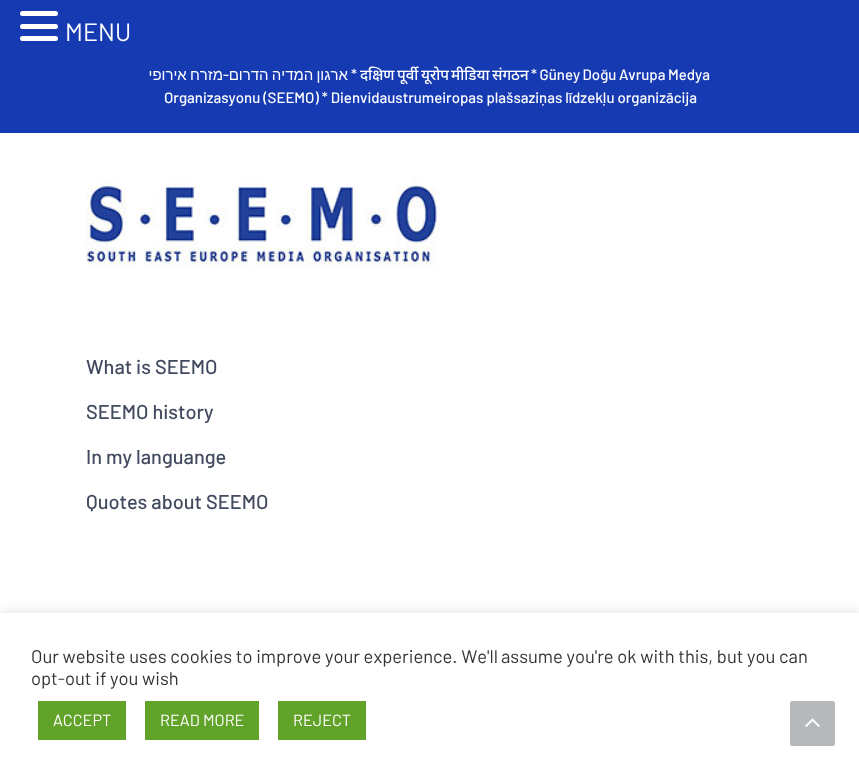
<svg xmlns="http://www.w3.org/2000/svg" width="859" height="771">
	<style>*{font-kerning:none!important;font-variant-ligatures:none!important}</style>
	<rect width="100%" height="100%" fill="#FFFFFF" />
	<rect x="0" y="0" width="859" height="133" fill="#153AB2" />
	<rect x="20" y="11" width="38" height="5" rx="2.5" fill="#FFFFFF" />
	<rect x="20" y="24" width="38" height="5" rx="2.5" fill="#FFFFFF" />
	<rect x="20" y="36" width="38" height="5" rx="2.5" fill="#FFFFFF" />
	<text x="65" y="41" font-family="Barlow" font-size="25" fill="#FFFFFF">MENU</text>
	<text x="223" y="80" word-spacing="-1" font-family="Liberation Sans" font-size="15" direction="rtl" fill="#FFFFFF">מזרח אירופי</text>
	<text x="229" y="80" font-family="Barlow" font-size="15" font-weight="500" direction="rtl" fill="#FFFFFF">-</text>
	<text x="348" y="80" word-spacing="-1" font-family="Liberation Sans" font-size="15" direction="rtl" fill="#FFFFFF">ארגון המדיה הדרום</text>
	<text x="351" y="80" font-family="Barlow" font-size="15" font-weight="500" fill="#FFFFFF">*</text>
	<g font-family="Noto Sans" font-size="15" font-weight="500" fill="#FFFFFF">
		<text x="360" y="80">दक्षिण</text>
		<text x="397" y="80">पूर्वी</text>
		<text x="421" y="80">यूरोप</text>
		<text x="451" y="80">मीडिया</text>
		<text x="492" y="80">संगठन</text>
	</g>
	<g font-family="Barlow" font-size="15" font-weight="500" fill="#FFFFFF">
		<text x="531" y="80" word-spacing="-0.5">* Güney Doğu Avrupa Medya</text>
		<text x="164" y="103">Organizasyonu (SEEMO) * Dienvidaustrumeiropas plašsaziņas līdzekļu organizācija</text>
	</g>
	<image x="86" y="177" width="351" height="91" href="assets/img1.png" />
	<g font-family="Barlow" font-size="20" font-weight="500" fill="#414A5E">
		<text x="86" y="374">What is SEEMO</text>
		<text x="86" y="419">SEEMO history</text>
		<text x="86" y="464">In my languange</text>
		<text x="86" y="509">Quotes about SEEMO</text>
	</g>
	<rect x="0" y="611" width="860" height="159" fill="#ACABAB" fill-opacity="0.3" filter="blur(6px)" />
	<rect x="0" y="613" width="859" height="158" fill="#FFFFFF" />
	<g font-family="Barlow" font-size="18.35" fill="#333333">
		<text x="31" y="663">Our website uses cookies to improve your experience. We'll</text>
		<text x="501" y="663">assume you're ok with this, but you can</text>
		<text x="31" y="685">opt-out if you wish</text>
	</g>
	<rect x="38" y="701" width="88" height="39" fill="#61A229" />
	<text x="53" y="726" font-family="Barlow" font-size="16.25" fill="#FFFFFF">ACCEPT</text>
	<rect x="145" y="701" width="114" height="39" fill="#61A229" />
	<text x="160" y="726" font-family="Barlow" font-size="16.25" fill="#FFFFFF">READ MORE</text>
	<rect x="278" y="701" width="88" height="39" fill="#61A229" />
	<text x="293" y="726" font-family="Barlow" font-size="16.25" fill="#FFFFFF">REJECT</text>
	<rect x="790" y="701" width="45" height="45" rx="2.5" fill="#B5B9BC" />
	<image x="805" y="718" width="15" height="9" href="assets/img2.png" />
</svg>
